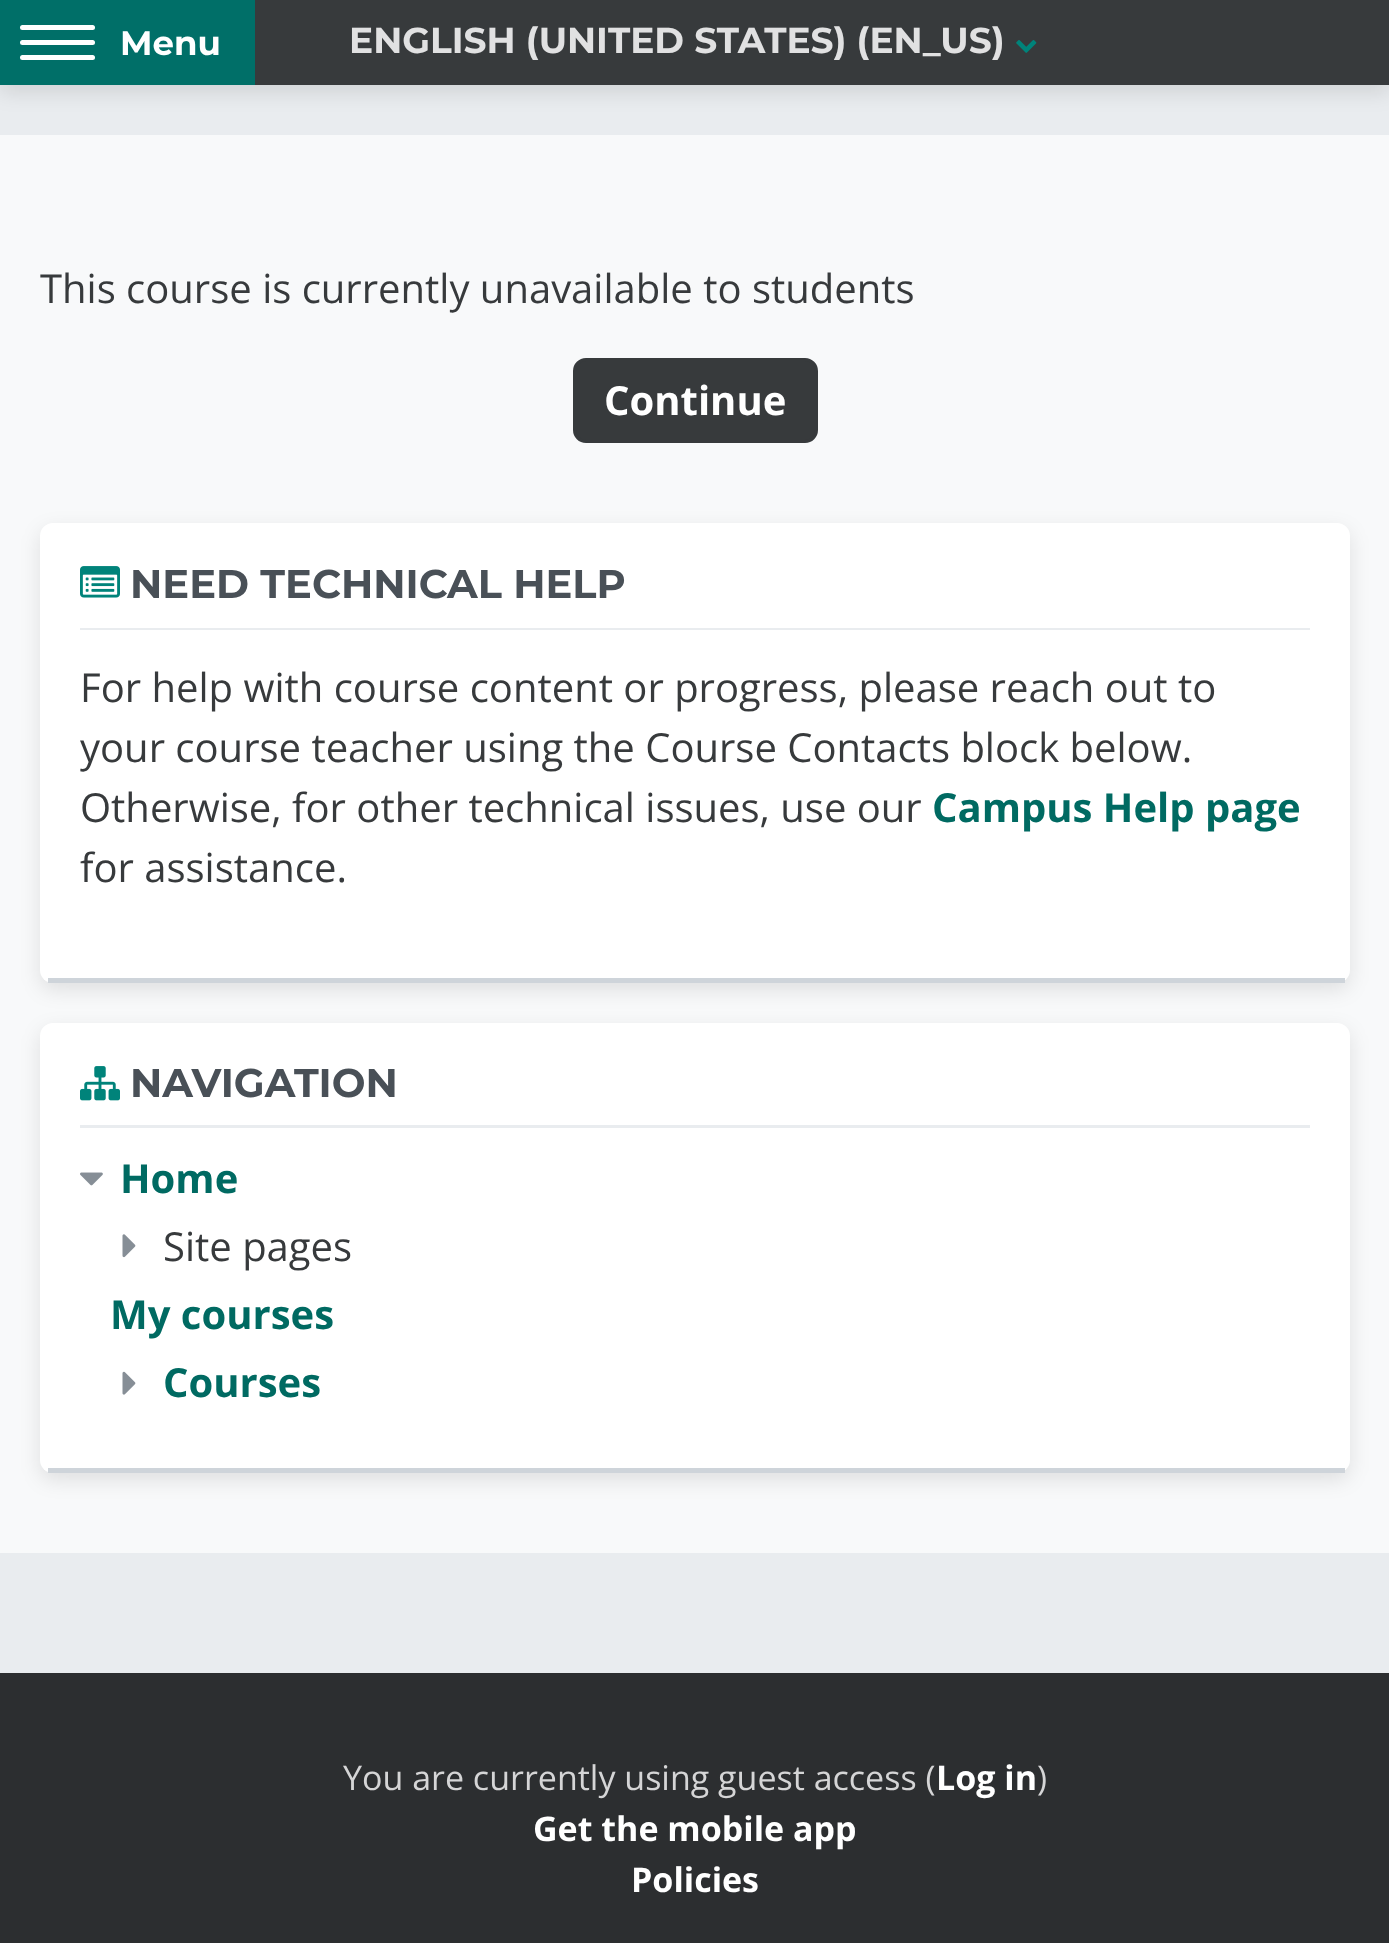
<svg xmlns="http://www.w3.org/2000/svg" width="1389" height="1943">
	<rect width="100%" height="100%" fill="#F8F9FA" />
	<rect x="0" y="85" width="1389" height="50" fill="#E9ECEF" />
	<rect x="0" y="8" width="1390" height="85" fill="#000000" fill-opacity="0.1" filter="blur(10px)" />
	<rect x="255" y="0" width="1134" height="85" fill="#373A3C" />
	<rect x="0" y="0" width="255" height="85" fill="#006F68" />
	<rect x="20" y="25" width="75" height="5" rx="2.5" fill="#FFFFFF" />
	<rect x="20" y="40" width="75" height="5" rx="2.5" fill="#FFFFFF" />
	<rect x="20" y="55" width="75" height="5" rx="2.5" fill="#FFFFFF" />
	<text x="120" y="55" font-family="Montserrat" font-size="34" font-weight="700" fill="#FFFFFF">Menu</text>
	<text x="349" y="53" font-family="Montserrat" font-size="36" font-weight="700" fill="#E1E1E2">ENGLISH (UNITED STATES) (EN_US)</text>
	<image x="1016" y="40" width="21" height="13" href="assets/img1.png" />
	<text x="40" y="303" font-family="Open Sans" font-size="40" fill="#373A3C">This course is currently unavailable to students</text>
	<rect x="574.5" y="359.5" width="242" height="82" rx="11.5" fill="#373A3C" stroke="#373A3C" stroke-width="3" />
	<text x="604" y="415" font-family="Open Sans" font-size="40" font-weight="700" fill="#FFFFFF">Continue</text>
	<rect x="40" y="530" width="1310" height="460" rx="13" fill="#000000" fill-opacity="0.1" filter="blur(10px)" />
	<rect x="40" y="523" width="1310" height="460" rx="13" fill="#FFFFFF" />
	<rect x="48" y="978" width="1297" height="5" fill="#CED4DA" />
	<rect x="80" y="628" width="1230" height="2" fill="#E9ECEF" />
	<image x="80" y="566" width="40" height="32" href="assets/img2.png" />
	<text x="130" y="598" font-family="Montserrat" font-size="40" font-weight="700" fill="#495057">NEED TECHNICAL HELP</text>
	<g font-family="Open Sans" font-size="40" fill="#373A3C">
		<text x="80" y="702">For help with course content or progress, please reach out to</text>
		<text x="80" y="762">your course teacher using the Course Contacts block below.</text>
		<text x="80" y="822">Otherwise, for other technical issues, use our</text>
	</g>
	<text x="932" y="822" font-family="Open Sans" font-size="40" font-weight="700" fill="#006A62">Campus Help page</text>
	<text x="80" y="882" font-family="Open Sans" font-size="40" fill="#373A3C">for assistance.</text>
	<rect x="40" y="1030" width="1310" height="450" rx="13" fill="#000000" fill-opacity="0.1" filter="blur(10px)" />
	<rect x="40" y="1023" width="1310" height="450" rx="13" fill="#FFFFFF" />
	<rect x="48" y="1468" width="1297" height="5" fill="#CED4DA" />
	<rect x="80" y="1125" width="1230" height="3" fill="#E9ECEF" />
	<image x="80" y="1066" width="40" height="35" href="assets/img3.png" />
	<text x="130" y="1097" font-family="Montserrat" font-size="40" font-weight="700" fill="#495057">NAVIGATION</text>
	<image x="80" y="1172" width="23" height="14" href="assets/img4.png" />
	<text x="120" y="1193" font-family="Open Sans" font-size="40" font-weight="700" fill="#006A62">Home</text>
	<image x="122" y="1234" width="14" height="24" href="assets/img5.png" />
	<text x="163" y="1261" font-family="Open Sans" font-size="40" fill="#373A3C">Site pages</text>
	<text x="110" y="1329" font-family="Open Sans" font-size="40" font-weight="700" fill="#006A62">My courses</text>
	<image x="122" y="1371" width="14" height="24" href="assets/img6.png" />
	<text x="163" y="1397" font-family="Open Sans" font-size="40" font-weight="700" fill="#006A62">Courses</text>
	<rect x="0" y="1553" width="1389" height="120" fill="#E9ECEF" />
	<rect x="0" y="1673" width="1389" height="270" fill="#2C2E30" />
	<text x="343" y="1790" font-family="Open Sans" font-size="34" fill="#D5D5D6">You are currently using guest access (</text>
	<text x="936" y="1790" font-family="Open Sans" font-size="34" font-weight="700" fill="#FFFFFF">Log in</text>
	<text x="1037" y="1790" font-family="Open Sans" font-size="34" fill="#D5D5D6">)</text>
	<g font-family="Open Sans" font-size="34" font-weight="700" fill="#FFFFFF">
		<text x="533" y="1841">Get the mobile app</text>
		<text x="631" y="1892">Policies</text>
	</g>
</svg>
